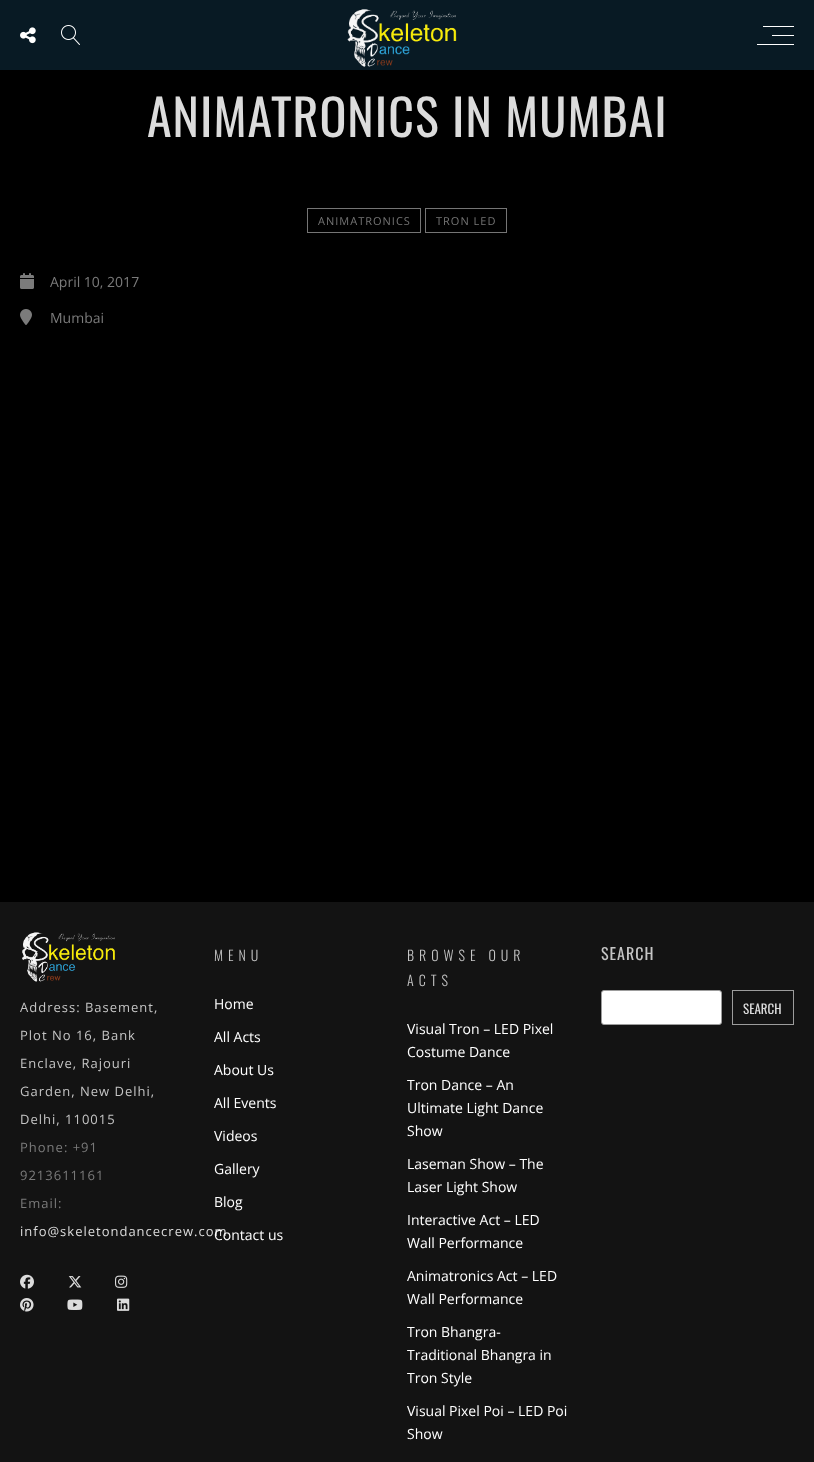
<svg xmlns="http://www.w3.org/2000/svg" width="814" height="1462">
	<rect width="100%" height="100%" fill="#000000" />
	<rect x="0" y="0" width="814" height="70" fill="#081A24" />
	<image x="20" y="27" width="16" height="17" href="assets/img1.png" />
	<image x="61" y="25" width="19" height="20" href="assets/img2.png" />
	<image x="347" y="9" width="110" height="58" href="assets/img3.png" />
	<rect x="763" y="26" width="31" height="1" fill="#FFFFFF" />
	<rect x="772" y="35" width="22" height="1" fill="#FFFFFF" />
	<rect x="757" y="44" width="37" height="1" fill="#FFFFFF" />
	<text x="147" y="137" font-family="Oswald" font-size="50" letter-spacing="1" fill="#DCDCDC">ANIMATRONICS IN MUMBAI</text>
	<rect x="307.5" y="208.5" width="113" height="24" fill="none" stroke="#757575" />
	<text x="318" y="225" font-family="Open Sans" font-size="11" letter-spacing="1" fill="#757575">ANIMATRONICS</text>
	<rect x="425.5" y="208.5" width="81" height="24" fill="none" stroke="#757575" />
	<text x="436" y="225" font-family="Open Sans" font-size="11" letter-spacing="1" fill="#757575">TRON LED</text>
	<image x="20" y="273" width="14" height="16" href="assets/img4.png" />
	<text x="50" y="287" font-family="Open Sans" font-size="14" fill="#7B7B7B">April 10, 2017</text>
	<image x="20" y="309" width="12" height="16" href="assets/img5.png" />
	<text x="50" y="323" font-family="Open Sans" font-size="14" fill="#7B7B7B">Mumbai</text>
	<rect x="0" y="902" width="814" height="560" fill="#131313" />
	<image x="22" y="932" width="93" height="50" href="assets/img6.png" />
	<g font-family="Open Sans" font-size="13" letter-spacing="1" fill="#C5C5C5">
		<text x="20" y="1012">Address: Basement,</text>
		<text x="20" y="1040">Plot No 16, Bank</text>
		<text x="20" y="1068">Enclave, Rajouri</text>
		<text x="20" y="1096">Garden, New Delhi,</text>
		<text x="20" y="1124">Delhi, 110015</text>
	</g>
	<g font-family="Open Sans" font-size="13" letter-spacing="1" fill="#7B7B7B">
		<text x="20" y="1152">Phone: +91</text>
		<text x="20" y="1180">9213611161</text>
		<text x="20" y="1208">Email:</text>
	</g>
	<text x="20" y="1236" font-family="Open Sans" font-size="13" letter-spacing="1" fill="#DCDCDC">info@skeletondancecrew.com</text>
	<image x="20" y="1274" width="14" height="15" href="assets/img7.png" />
	<image x="68" y="1276" width="14" height="12" href="assets/img8.png" />
	<image x="115" y="1275" width="13" height="13" href="assets/img9.png" />
	<image x="20" y="1298" width="14" height="14" href="assets/img10.png" />
	<image x="67" y="1299" width="16" height="11" href="assets/img11.png" />
	<image x="117" y="1298" width="13" height="13" href="assets/img12.png" />
	<text x="214" y="961" font-family="Oswald" font-size="14" font-weight="300" letter-spacing="5" fill="#C5C5C5">MENU</text>
	<g font-family="Open Sans" font-size="14" fill="#FFFFFF">
		<text x="214" y="1009">Home</text>
		<text x="214" y="1042">All Acts</text>
		<text x="214" y="1075">About Us</text>
		<text x="214" y="1108">All Events</text>
		<text x="214" y="1141">Videos</text>
		<text x="214" y="1174">Gallery</text>
		<text x="214" y="1207">Blog</text>
		<text x="214" y="1240">Contact us</text>
	</g>
	<g font-family="Oswald" font-size="14" font-weight="300" letter-spacing="5" fill="#C5C5C5">
		<text x="407" y="961">BROWSE OUR</text>
		<text x="407" y="986">ACTS</text>
	</g>
	<g font-family="Open Sans" font-size="14" fill="#FFFFFF">
		<text x="407" y="1034">Visual Tron – LED Pixel</text>
		<text x="407" y="1057">Costume Dance</text>
		<text x="407" y="1090">Tron Dance – An</text>
		<text x="407" y="1113">Ultimate Light Dance</text>
		<text x="407" y="1136">Show</text>
		<text x="407" y="1169">Laseman Show – The</text>
		<text x="407" y="1192">Laser Light Show</text>
		<text x="407" y="1225">Interactive Act – LED</text>
		<text x="407" y="1248">Wall Performance</text>
		<text x="407" y="1281">Animatronics Act – LED</text>
		<text x="407" y="1304">Wall Performance</text>
		<text x="407" y="1337">Tron Bhangra-</text>
		<text x="407" y="1360">Traditional Bhangra in</text>
		<text x="407" y="1383">Tron Style</text>
		<text x="407" y="1416">Visual Pixel Poi – LED Poi</text>
		<text x="407" y="1439">Show</text>
	</g>
	<text x="601" y="960" font-family="Oswald" font-size="16" letter-spacing="1" fill="#C5C5C5">SEARCH</text>
	<rect x="601.5" y="990.5" width="120" height="34" rx="2.5" fill="#FFFFFF" stroke="#9C9C9C" />
	<rect x="732.5" y="990.5" width="61" height="34" fill="none" stroke="#9C9C9C" />
	<text x="743" y="1014" font-family="Oswald" font-size="13" fill="#DCDCDC">SEARCH</text>
</svg>
